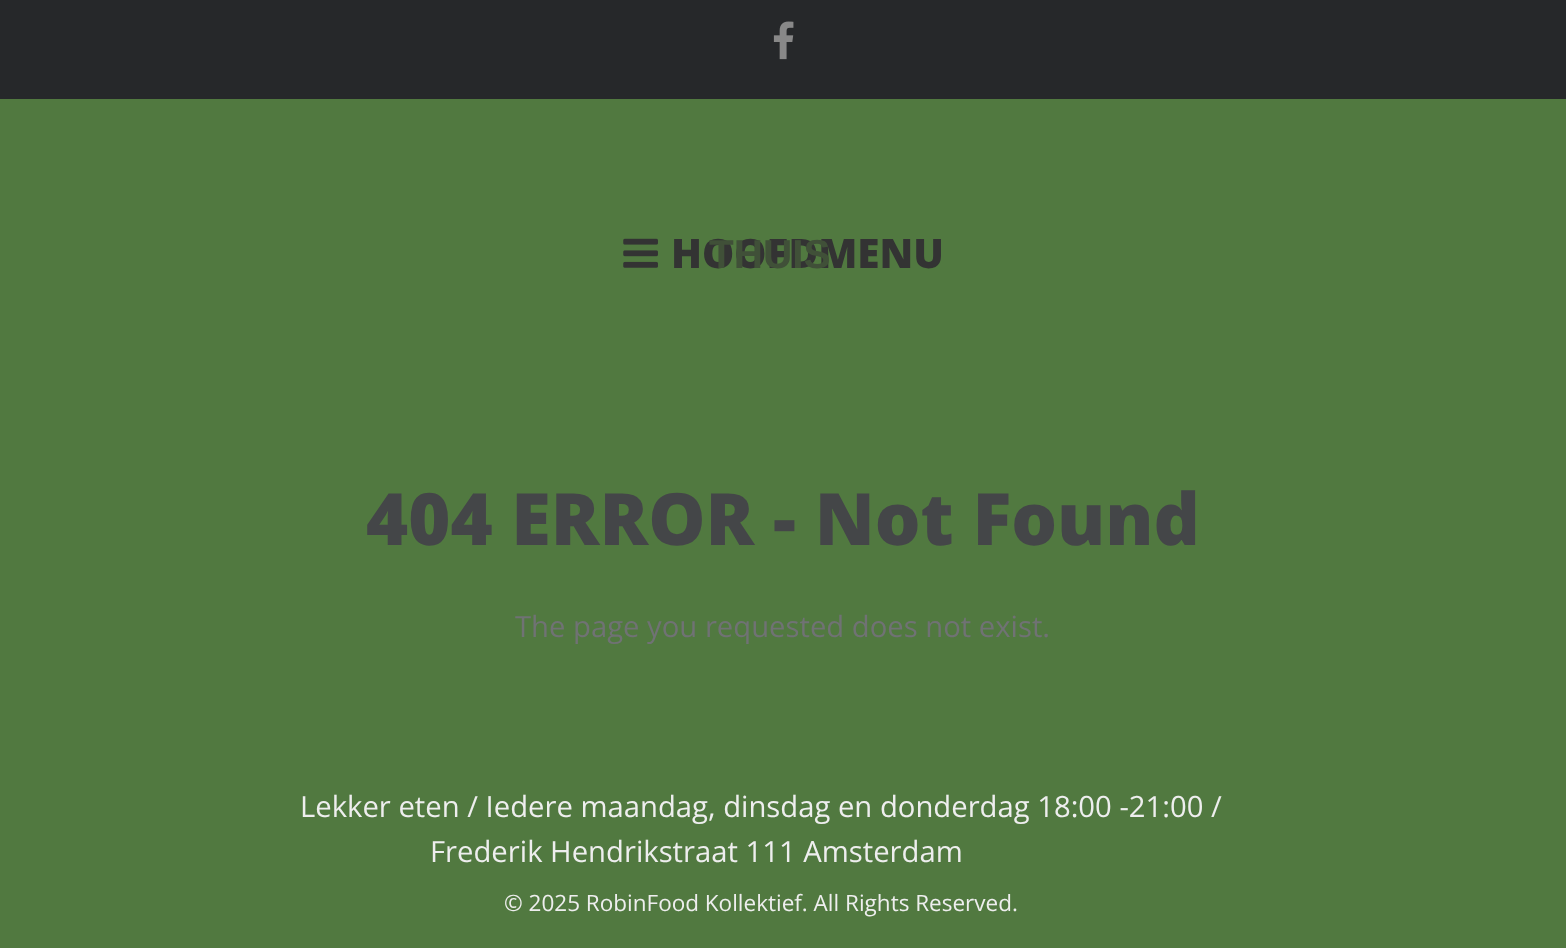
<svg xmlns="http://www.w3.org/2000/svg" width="1566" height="948">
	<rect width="100%" height="100%" fill="#517940" />
	<rect x="0" y="0" width="1566" height="99" fill="#26282A" />
	<image x="773" y="21" width="21" height="39" href="assets/img1.png" />
	<image x="623" y="238" width="35" height="30" href="assets/img2.png" />
	<text x="671" y="268" font-family="Open Sans" font-size="40.5" font-weight="800" fill="#333333">HOOFDMENU</text>
	<text x="709" y="268" font-family="Liberation Sans" font-size="40.5" font-weight="700" fill="#405038">THUIS</text>
	<text x="366" y="545" font-family="Open Sans" font-size="72" font-weight="800" fill="#444648">404 ERROR - Not Found</text>
	<text x="515" y="637" font-family="Open Sans" font-size="29.25" fill="#707274">The page you requested does not exist.</text>
	<g font-family="Open Sans" font-size="29.25" fill="#EEEEEE">
		<text x="300" y="817">Lekker eten / Iedere maandag, dinsdag en donderdag 18:00 -21:00 /</text>
		<text x="430" y="862">Frederik Hendrikstraat 111 Amsterdam</text>
	</g>
	<text x="504" y="911" font-family="Open Sans" font-size="22.5" fill="#EEEEEE">© 2025 RobinFood Kollektief. All Rights Reserved.</text>
</svg>
